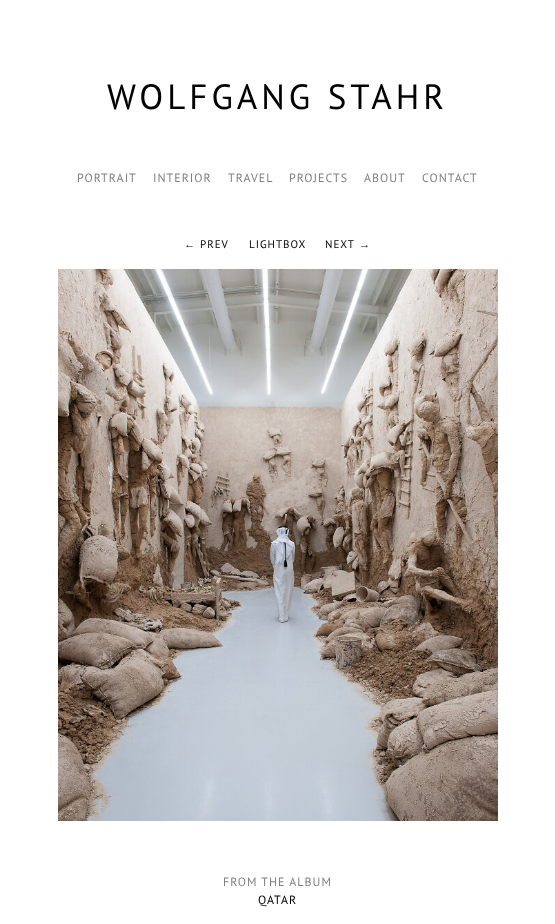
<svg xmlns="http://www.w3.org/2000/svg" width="555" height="924">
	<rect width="100%" height="100%" fill="#FFFFFF" />
	<text x="107" y="109" font-family="PT Sans" font-size="35" letter-spacing="4" fill="#000000">WOLFGANG STAHR</text>
	<g font-family="PT Sans" font-size="12" letter-spacing="1" fill="#808080">
		<text x="77" y="182">PORTRAIT</text>
		<text x="153" y="182">INTERIOR</text>
		<text x="228" y="182">TRAVEL</text>
		<text x="289" y="182">PROJECTS</text>
		<text x="364" y="182">ABOUT</text>
		<text x="422" y="182">CONTACT</text>
	</g>
	<text x="184" y="248" font-family="Liberation Sans" font-size="11" letter-spacing="1" fill="#000000">←</text>
	<g font-family="PT Sans" font-size="11" letter-spacing="1" fill="#000000">
		<text x="200" y="248">PREV</text>
		<text x="249" y="248">LIGHTBOX</text>
		<text x="325" y="248">NEXT</text>
	</g>
	<text x="359" y="248" font-family="Liberation Sans" font-size="11" letter-spacing="1" fill="#000000">→</text>
	<image x="58" y="269" width="440" height="552" href="assets/img1.png" />
	<text x="223" y="886" font-family="PT Sans" font-size="12" letter-spacing="1" fill="#808080">FROM THE ALBUM</text>
	<text x="258" y="904" font-family="PT Sans" font-size="12" letter-spacing="1" fill="#000000">QATAR</text>
</svg>
